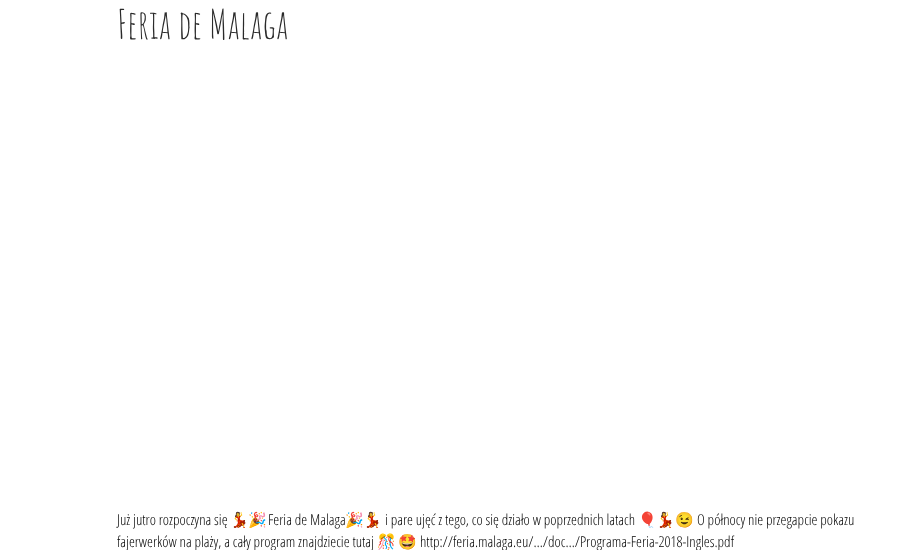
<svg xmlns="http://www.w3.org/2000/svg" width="921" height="550">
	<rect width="100%" height="100%" fill="#FFFFFF" />
	<text x="117" y="39" font-family="Amatic SC" font-size="40" fill="#2A2A2A">Feria de Malaga</text>
	<text x="117" y="525" font-family="Open Sans Condensed" font-size="15" font-weight="300" fill="#000000">Już jutro rozpoczyna się</text>
	<text x="230" y="525" font-family="Noto Color Emoji" font-size="15" fill="#000000">💃🎉</text>
	<text x="268" y="525" font-family="Open Sans Condensed" font-size="15" font-weight="300" fill="#000000">Feria de Malaga</text>
	<text x="345" y="525" font-family="Noto Color Emoji" font-size="15" fill="#000000">🎉💃</text>
	<text x="385" y="525" font-family="Open Sans Condensed" font-size="15" font-weight="300" fill="#000000">i pare ujęć z tego, co się działo w poprzednich latach</text>
	<text x="638" y="525" font-family="Noto Color Emoji" font-size="15" fill="#000000">🎈💃😉</text>
	<g font-family="Open Sans Condensed" font-size="15" font-weight="300" fill="#000000">
		<text x="697" y="525">O północy nie przegapcie pokazu</text>
		<text x="117" y="547">fajerwerków na plaży, a cały program znajdziecie tutaj</text>
	</g>
	<g font-family="Noto Color Emoji" font-size="15" fill="#000000">
		<text x="377" y="547">🎊</text>
		<text x="398" y="547">🤩</text>
	</g>
	<text x="420" y="547" font-family="Open Sans Condensed" font-size="15" font-weight="300" fill="#000000">http://feria.malaga.eu/…/doc…/Programa-Feria-2018-Ingles.pdf</text>
</svg>
